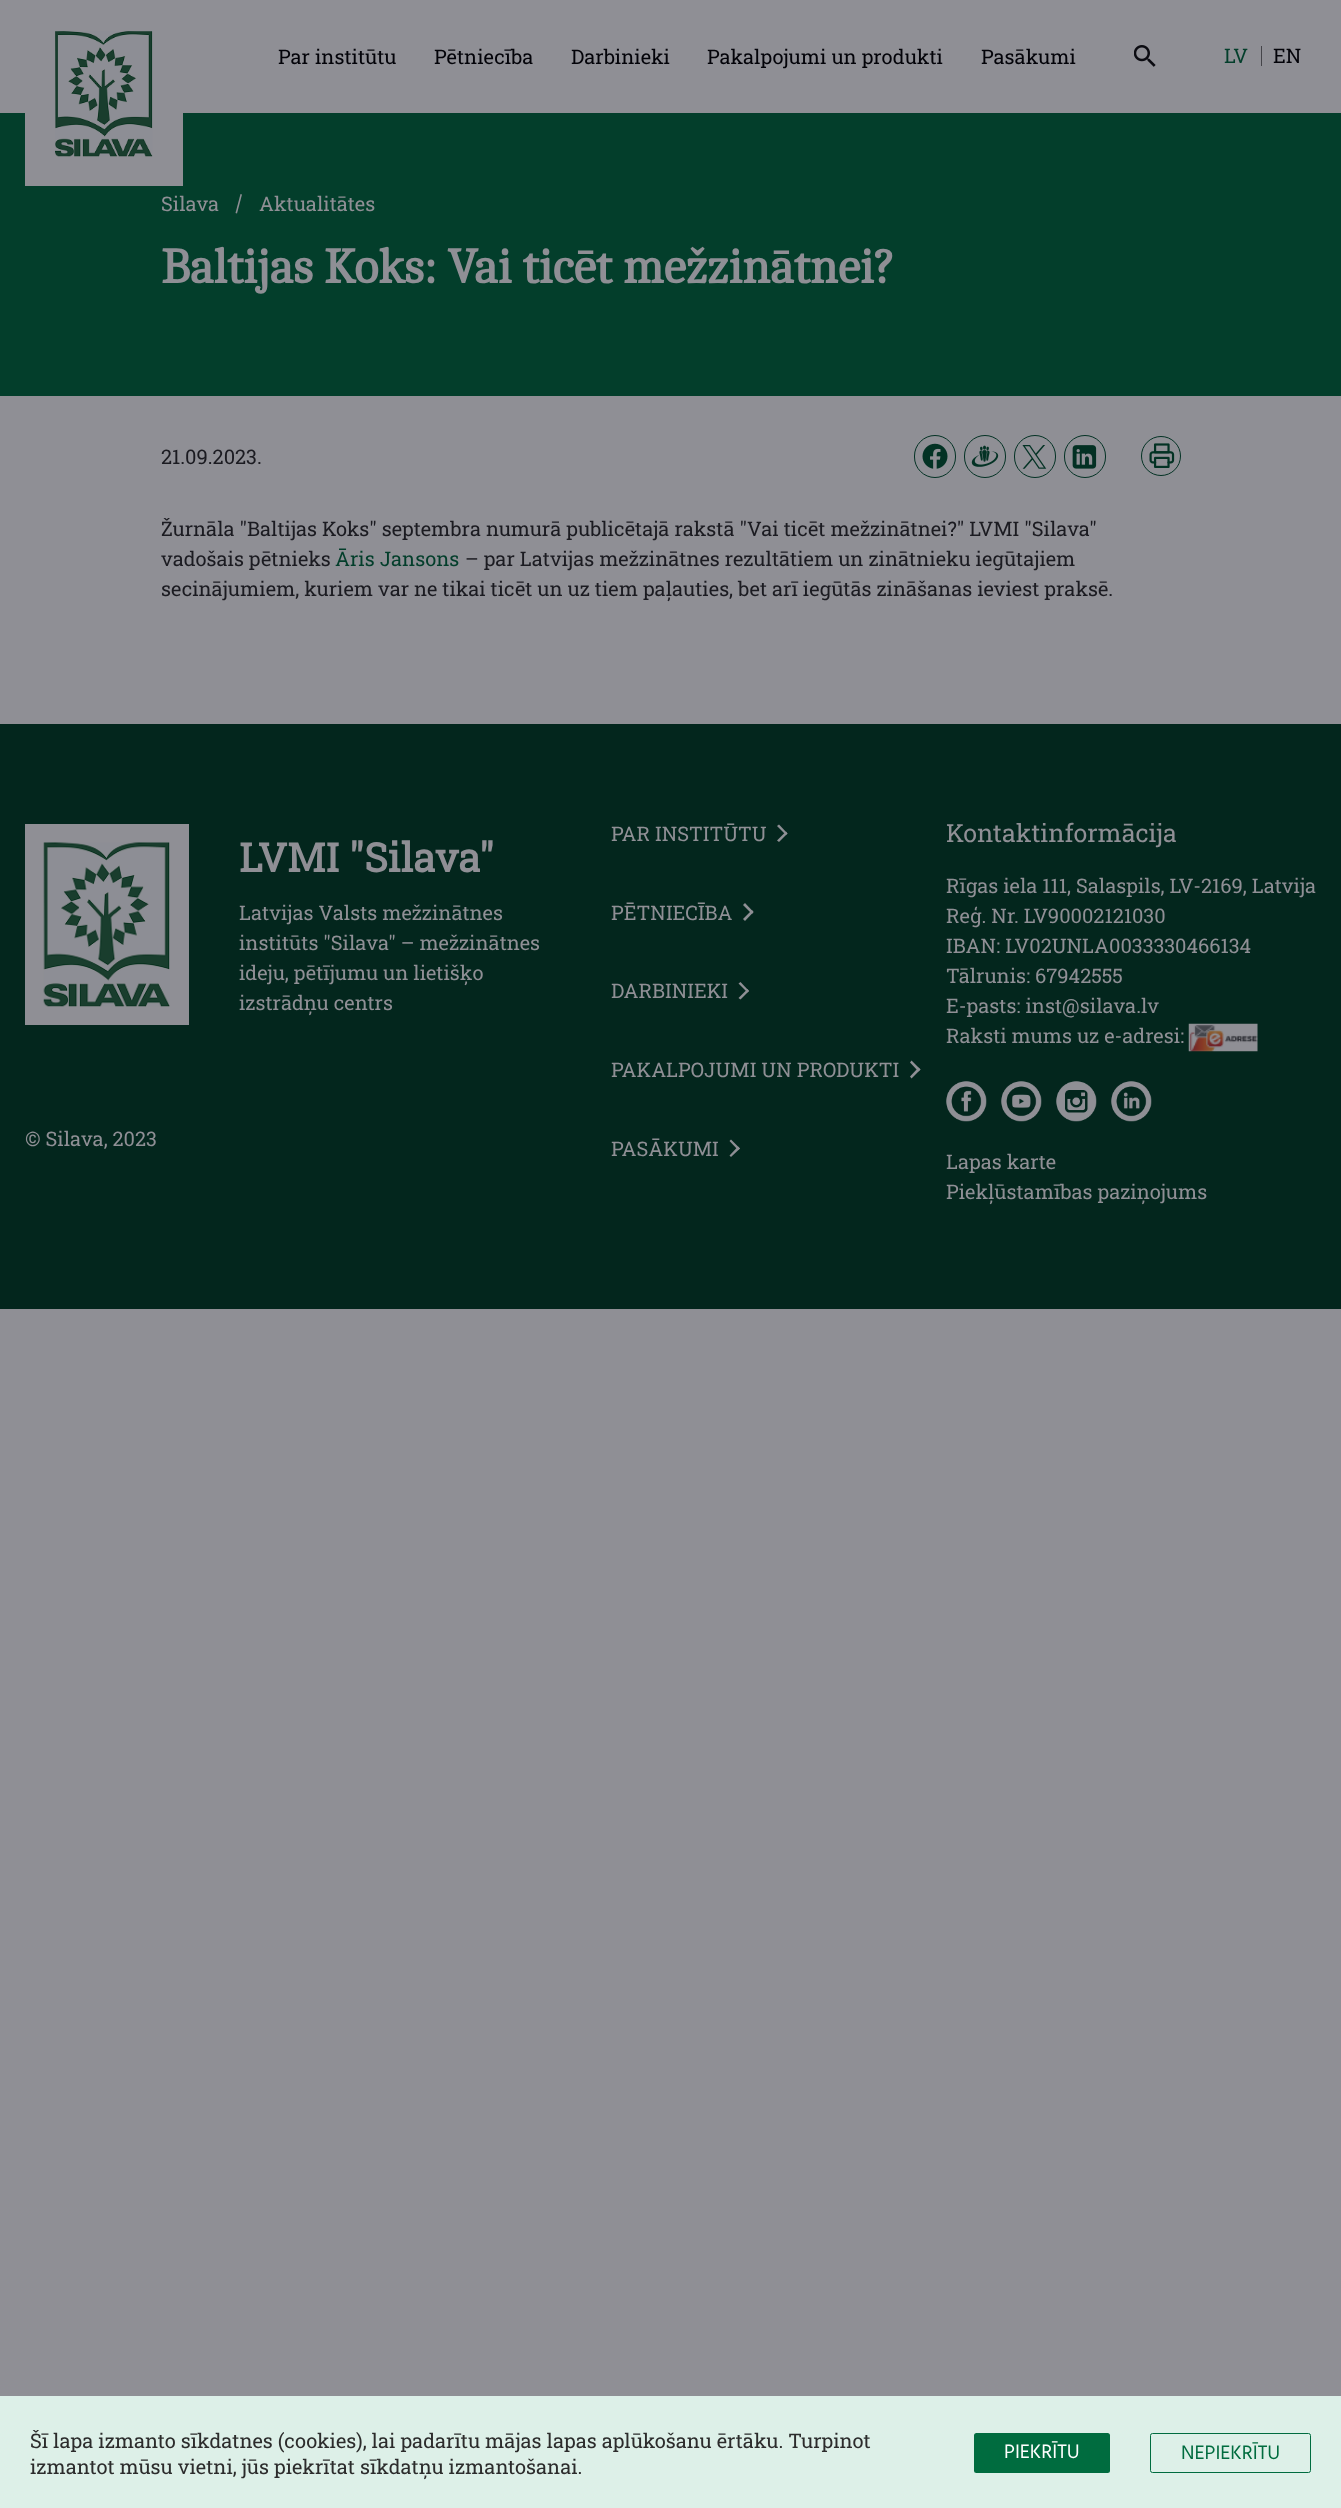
<svg xmlns="http://www.w3.org/2000/svg" width="1341" height="2508">
	<rect width="100%" height="100%" fill="#8F8F95" />
	<rect x="0" y="113" width="1341" height="283" fill="#033E2B" />
	<rect x="25" y="113" width="158" height="73" fill="#8F8F95" />
	<image x="55" y="31" width="98" height="126" href="assets/img1.png" />
	<g font-family="Roboto Slab" font-size="20" fill="#030309">
		<text x="278" y="64">Par institūtu</text>
		<text x="434" y="64">Pētniecība</text>
		<text x="571" y="64">Darbinieki</text>
		<text x="707" y="64">Pakalpojumi un produkti</text>
		<text x="981" y="64">Pasākumi</text>
	</g>
	<image x="1134" y="45" width="22" height="22" href="assets/img2.png" />
	<rect x="1261" y="46" width="1" height="20" fill="#444449" />
	<text x="1224" y="63" font-family="Roboto Slab" font-size="20" fill="#033E2B">LV</text>
	<text x="1273" y="63" font-family="Roboto Slab" font-size="20" fill="#030309">EN</text>
	<text x="161" y="211" font-family="Roboto Slab" font-size="20" fill="#8F8F95">Silava</text>
	<path d="M240.5 194L242 194.5L237 213.5L235.5 213Z" fill="#8F8F95" />
	<text x="259" y="211" font-family="Roboto Slab" font-size="20" fill="#8F8F95">Aktualitātes</text>
	<text x="161" y="283" font-family="Caladea" font-size="50" font-weight="700" fill="#8F8F95">Baltijas Koks: Vai ticēt mežzinātnei?</text>
	<text x="161" y="464" font-family="Roboto Slab" font-size="20" fill="#1B1B21">21.09.2023.</text>
	<image x="1149" y="443" width="26" height="25" href="assets/img3.png" />
	<circle cx="1161" cy="456" r="19.5" fill="none" stroke="#033224" />
	<rect x="914.5" y="435.5" width="41" height="42" rx="20.5" fill="none" stroke="#033224" />
	<image x="922" y="443" width="26" height="26" href="assets/img4.png" />
	<rect x="964.5" y="435.5" width="41" height="42" rx="20.5" fill="none" stroke="#033224" />
	<image x="971" y="445" width="28" height="22" href="assets/img5.png" />
	<rect x="1014.5" y="435.5" width="41" height="42" rx="20.5" fill="none" stroke="#033224" />
	<image x="1022" y="445" width="25" height="24" href="assets/img6.png" />
	<rect x="1064.5" y="435.5" width="41" height="42" rx="20.5" fill="none" stroke="#033224" />
	<image x="1072" y="445" width="25" height="24" href="assets/img7.png" />
	<g font-family="Roboto Slab" font-size="20" fill="#1B1B21">
		<text x="161" y="536">Žurnāla "Baltijas Koks" septembra numurā publicētajā rakstā "Vai ticēt mežzinātnei?" LVMI "Silava"</text>
		<text x="161" y="566">vadošais pētnieks</text>
	</g>
	<text x="335" y="566" font-family="Roboto Slab" font-size="20" fill="#033E2B">Āris Jansons</text>
	<g font-family="Roboto Slab" font-size="20" fill="#1B1B21">
		<text x="465" y="566">– par Latvijas mežzinātnes rezultātiem un zinātnieku iegūtajiem</text>
		<text x="161" y="596">secinājumiem, kuriem var ne tikai ticēt un uz tiem paļauties, bet arī iegūtās zināšanas ieviest praksē.</text>
	</g>
	<rect x="0" y="724" width="1341" height="585" fill="#03261D" />
	<text x="239" y="872" font-family="Roboto Slab" font-size="40" font-weight="700" fill="#8F8F95">LVMI "Silava"</text>
	<g font-family="Roboto Slab" font-size="20" fill="#8F8F95">
		<text x="239" y="920">Latvijas Valsts mežzinātnes</text>
		<text x="239" y="950">institūts "Silava" – mežzinātnes</text>
		<text x="239" y="980">ideju, pētījumu un lietišķo</text>
		<text x="239" y="1010">izstrādņu centrs</text>
	</g>
	<rect x="25" y="824" width="164" height="201" fill="#8F8F95" />
	<image x="43" y="842" width="127" height="165" href="assets/img8.png" />
	<g font-family="Roboto Slab" font-size="20" fill="#8F8F95">
		<text x="25" y="1146">© Silava, 2023</text>
		<text x="611" y="841">PAR INSTITŪTU</text>
	</g>
	<path d="M777 826L779 824.5L787.5 833.5L786 835Z" fill="#8F8F95" />
	<path d="M777 840.5L786 831.5L787.5 833.5L779 842Z" fill="#8F8F95" />
	<text x="611" y="920" font-family="Roboto Slab" font-size="20" fill="#8F8F95">PĒTNIECĪBA</text>
	<path d="M743 905L745 903L753.5 912L752 914Z" fill="#8F8F95" />
	<path d="M743 919L752 910L753.5 912L745 921Z" fill="#8F8F95" />
	<text x="611" y="998" font-family="Roboto Slab" font-size="20" fill="#8F8F95">DARBINIEKI</text>
	<path d="M738.5 983.5L740.5 982L749 991L747.5 992.5Z" fill="#8F8F95" />
	<path d="M738.5 998L747.5 989L749 991L740.5 999.5Z" fill="#8F8F95" />
	<text x="611" y="1077" font-family="Roboto Slab" font-size="20" fill="#8F8F95">PAKALPOJUMI UN PRODUKTI</text>
	<path d="M910 1062.5L911.5 1060.5L920.5 1069.5L918.5 1071.5Z" fill="#8F8F95" />
	<path d="M910 1076.5L918.5 1067.5L920.5 1069.5L911.5 1078.5Z" fill="#8F8F95" />
	<text x="611" y="1156" font-family="Roboto Slab" font-size="20" fill="#8F8F95">PASĀKUMI</text>
	<path d="M729.5 1141L731 1139.5L740 1148.5L738 1150Z" fill="#8F8F95" />
	<path d="M729.5 1155.5L738 1146.5L740 1148.5L731 1157Z" fill="#8F8F95" />
	<text x="946" y="842" font-family="Roboto Slab" font-size="25" fill="#8F8F95">Kontaktinformācija</text>
	<g font-family="Roboto Slab" font-size="20" fill="#8F8F95">
		<text x="946" y="893">Rīgas iela 111, Salaspils, LV-2169, Latvija</text>
		<text x="946" y="923">Reģ. Nr. LV90002121030</text>
		<text x="946" y="953">IBAN: LV02UNLA0033330466134</text>
		<text x="946" y="983">Tālrunis: 67942555</text>
		<text x="946" y="1013">E-pasts: inst@silava.lv</text>
		<text x="946" y="1043">Raksti mums uz e-adresi:</text>
	</g>
	<image x="1188" y="1023" width="70" height="29" href="assets/img9.png" />
	<image x="946" y="1081" width="41" height="41" href="assets/img10.png" />
	<image x="1001" y="1081" width="41" height="41" href="assets/img11.png" />
	<image x="1056" y="1081" width="41" height="41" href="assets/img12.png" />
	<image x="1111" y="1081" width="41" height="41" href="assets/img13.png" />
	<g font-family="Roboto Slab" font-size="20" fill="#8F8F95">
		<text x="946" y="1169">Lapas karte</text>
		<text x="946" y="1199">Piekļūstamības paziņojums</text>
	</g>
	<rect x="0" y="2396" width="1341" height="112" fill="#DDF0E8" />
	<g font-family="Roboto Slab" font-size="20" fill="#2C2C2C">
		<text x="30" y="2448">Šī lapa izmanto sīkdatnes (cookies), lai padarītu mājas lapas aplūkošanu ērtāku. Turpinot</text>
		<text x="30" y="2474">izmantot mūsu vietni, jūs piekrītat sīkdatņu izmantošanai.</text>
	</g>
	<rect x="974" y="2433" width="136" height="40" rx="2.5" fill="#006C3F" />
	<text x="1004" y="2458" font-family="Hind" font-size="20" fill="#FFFFFF">PIEKRĪTU</text>
	<rect x="1150.5" y="2433.5" width="160" height="39" rx="2" fill="none" stroke="#006C3F" />
	<text x="1181" y="2459" font-family="Hind" font-size="20" fill="#006C3F">NEPIEKRĪTU</text>
</svg>
